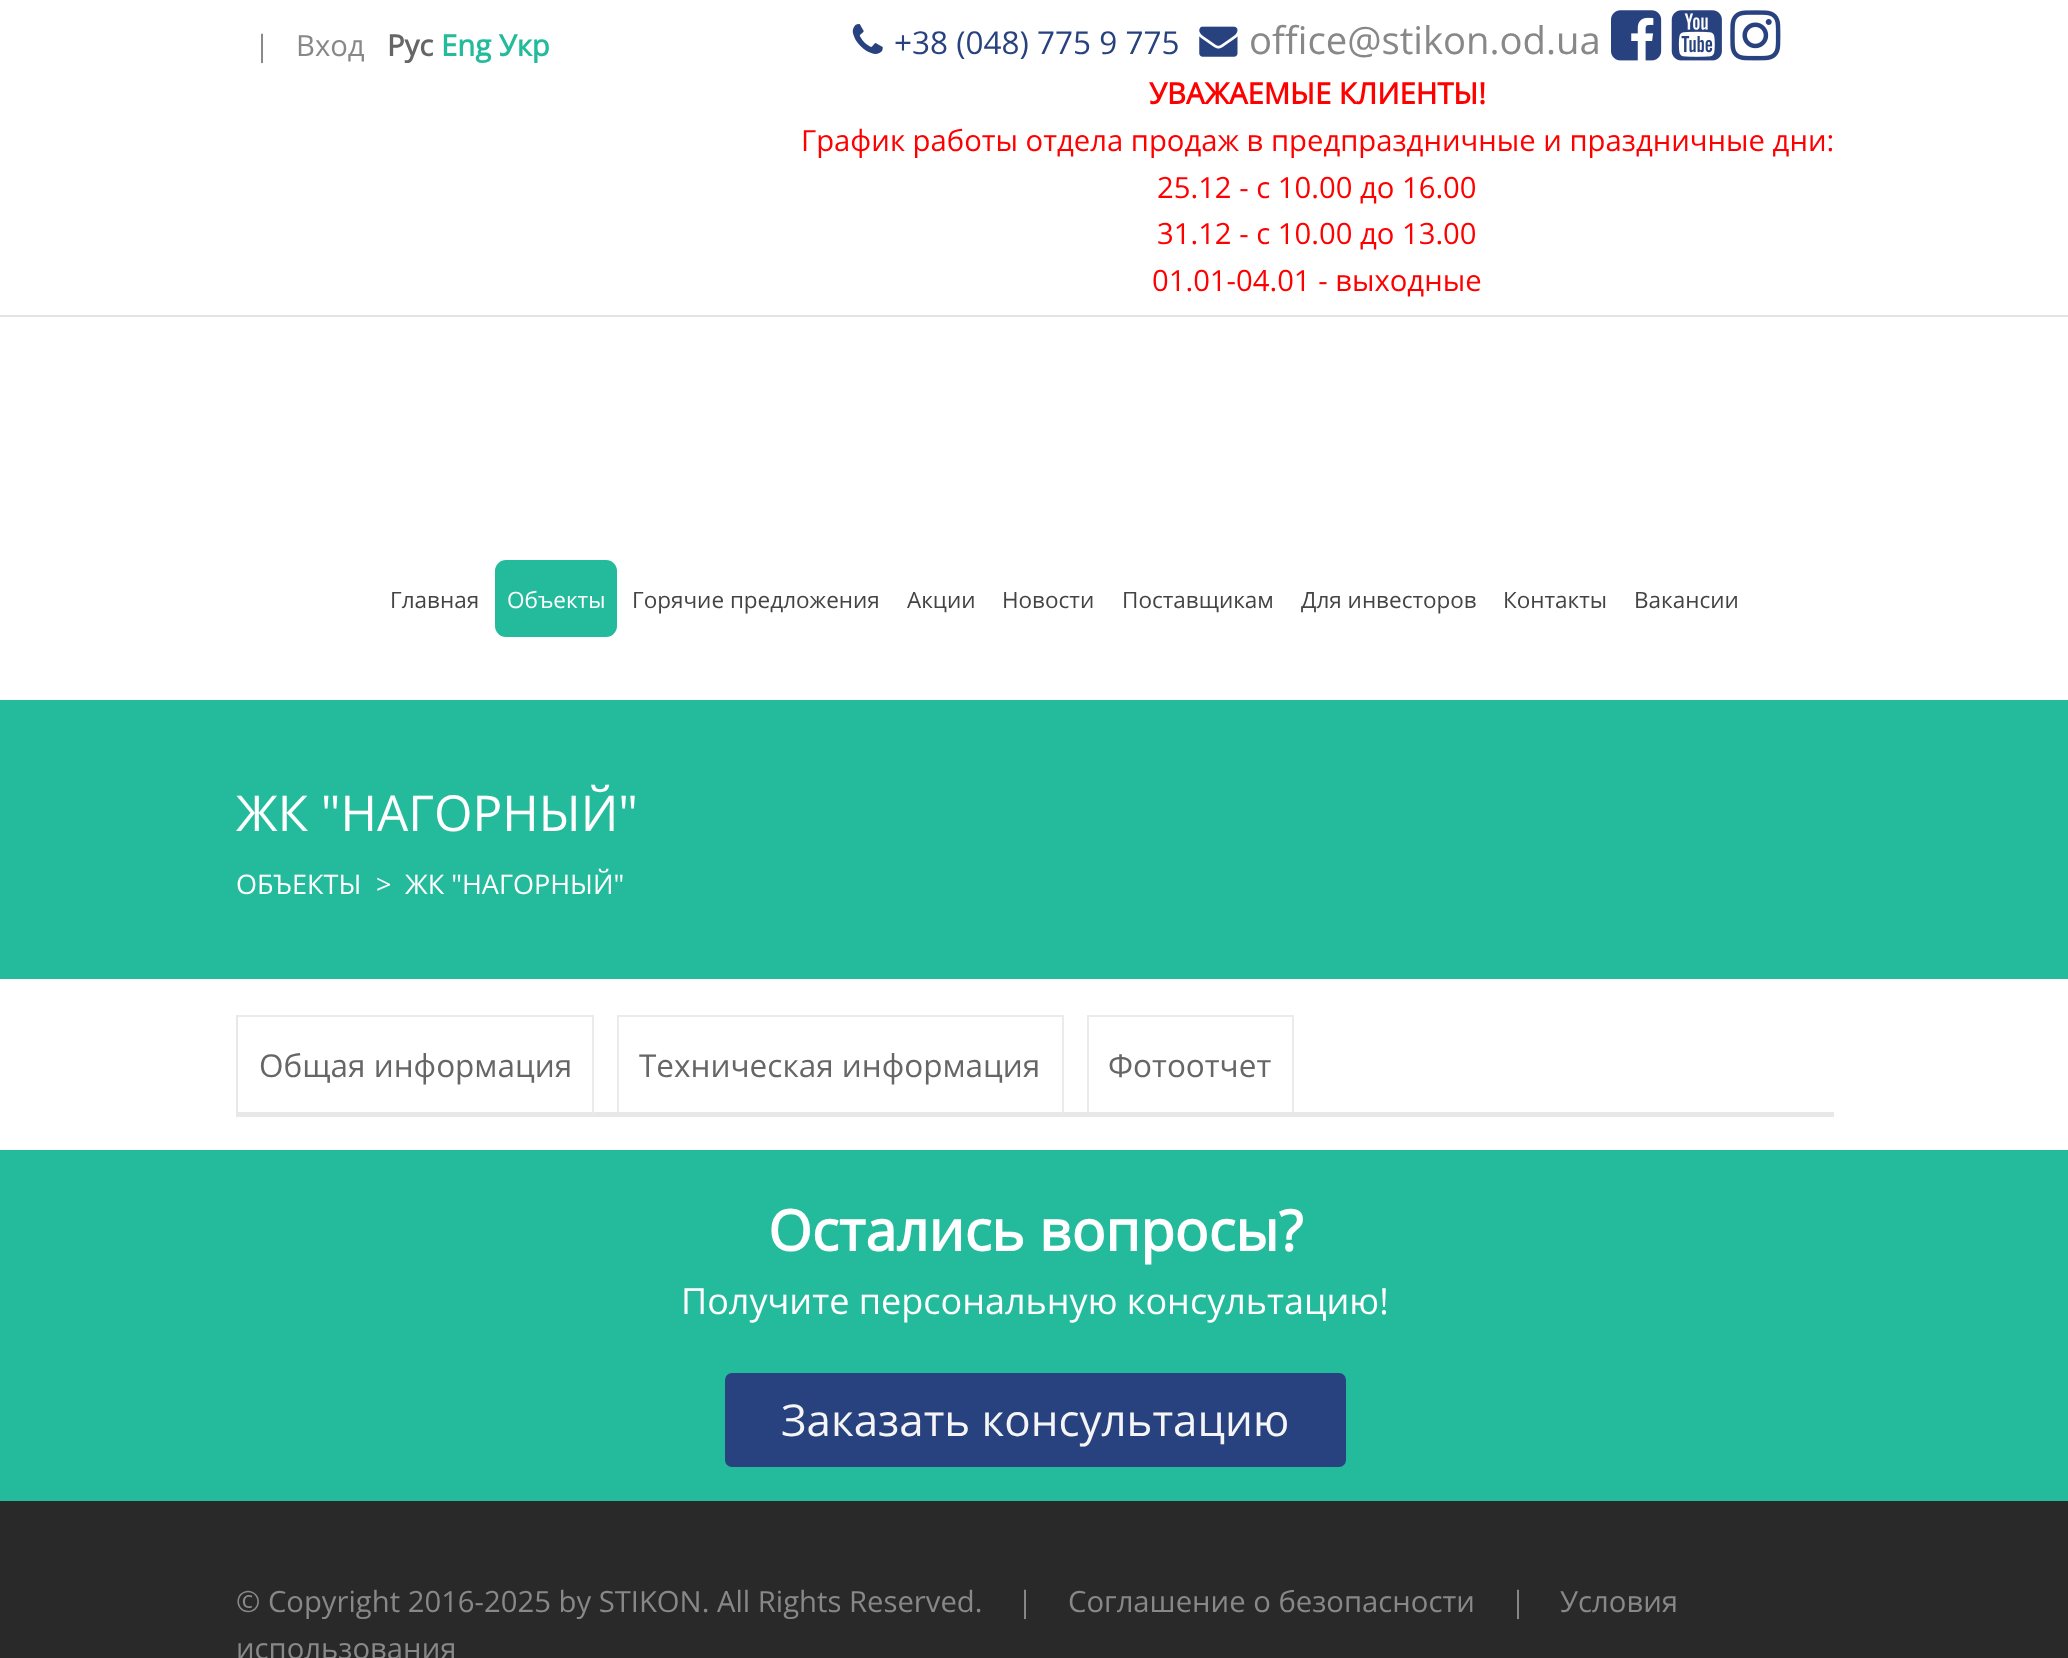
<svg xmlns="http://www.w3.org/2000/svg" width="2068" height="1658">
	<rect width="100%" height="100%" fill="#FFFFFF" />
	<rect x="0" y="315" width="2068" height="2" fill="#E3E3E3" />
	<g font-family="Open Sans" font-size="29.25" fill="#888888">
		<text x="254" y="56">|</text>
		<text x="296" y="56">Вход</text>
	</g>
	<text x="387" y="56" font-family="Open Sans" font-size="29.25" font-weight="700" fill="#666666">Рус</text>
	<text x="441" y="56" font-family="Open Sans" font-size="29.25" font-weight="700" fill="#24BB9C">Eng Укр</text>
	<image x="852" y="24" width="31" height="30" href="assets/img1.png" />
	<text x="894" y="54" font-family="Open Sans" font-size="31.5" fill="#28427F">+38 (048) 775 9 775</text>
	<image x="1199" y="26" width="39" height="31" href="assets/img2.png" />
	<text x="1249" y="54" font-family="Open Sans" font-size="38.25" fill="#888888">office@stikon.od.ua</text>
	<image x="1611" y="10" width="51" height="51" href="assets/img3.png" />
	<image x="1671" y="10" width="51" height="51" href="assets/img4.png" />
	<image x="1730" y="10" width="51" height="51" href="assets/img5.png" />
	<text x="1149" y="104" font-family="Open Sans" font-size="29.25" font-weight="700" fill="#FF0000">УВАЖАЕМЫЕ КЛИЕНТЫ!</text>
	<g font-family="Open Sans" font-size="29.25" fill="#FF0000">
		<text x="801" y="151">График работы отдела продаж в предпраздничные и праздничные дни:</text>
		<text x="1157" y="198">25.12 - с 10.00 до 16.00</text>
		<text x="1157" y="244">31.12 - с 10.00 до 13.00</text>
		<text x="1152" y="291">01.01-04.01 - выходные</text>
	</g>
	<text x="390" y="608" font-family="Open Sans" font-size="22.5" fill="#444444">Главная</text>
	<rect x="495" y="560" width="122" height="77" rx="11" fill="#24BB9C" />
	<text x="507" y="608" font-family="Open Sans" font-size="22.5" fill="#FFFFFF">Объекты</text>
	<g font-family="Open Sans" font-size="22.5" fill="#444444">
		<text x="632" y="608">Горячие предложения</text>
		<text x="907" y="608">Акции</text>
		<text x="1002" y="608">Новости</text>
		<text x="1122" y="608">Поставщикам</text>
		<text x="1301" y="608">Для инвесторов</text>
		<text x="1503" y="608">Контакты</text>
		<text x="1634" y="608">Вакансии</text>
	</g>
	<rect x="0" y="700" width="2068" height="279" fill="#24BB9C" />
	<text x="236" y="831" font-family="Open Sans" font-size="49.5" fill="#FFFFFF">ЖК "НАГОРНЫЙ"</text>
	<g font-family="Open Sans" font-size="27" fill="#FFFFFF">
		<text x="236" y="894">ОБЪЕКТЫ</text>
		<text x="376" y="894">&gt;</text>
		<text x="405" y="894">ЖК "НАГОРНЫЙ"</text>
	</g>
	<rect x="236" y="1015" width="358" height="2" fill="#EBEBEB" />
	<rect x="236" y="1112" width="1598" height="5" fill="#E8E8E8" />
	<rect x="592" y="1015" width="2" height="99" fill="#EBEBEB" />
	<rect x="236" y="1015" width="2" height="99" fill="#E8E8E8" />
	<text x="259" y="1077" font-family="Open Sans" font-size="31.5" fill="#666666">Общая информация</text>
	<rect x="617" y="1015" width="447" height="2" fill="#EBEBEB" />
	<rect x="1062" y="1015" width="2" height="99" fill="#EBEBEB" />
	<rect x="617" y="1015" width="2" height="99" fill="#EBEBEB" />
	<text x="639" y="1077" font-family="Open Sans" font-size="31.5" fill="#666666">Техническая информация</text>
	<rect x="1087" y="1015" width="207" height="2" fill="#EBEBEB" />
	<rect x="1292" y="1015" width="2" height="99" fill="#EBEBEB" />
	<rect x="1087" y="1015" width="2" height="99" fill="#EBEBEB" />
	<text x="1108" y="1077" font-family="Open Sans" font-size="31.5" fill="#666666">Фотоотчет</text>
	<rect x="0" y="1150" width="2068" height="351" fill="#24BB9C" />
	<text x="768" y="1251" font-family="Open Sans" font-size="56.25" font-weight="700" fill="#FFFFFF">Остались вопросы?</text>
	<text x="681" y="1314" font-family="Open Sans" font-size="36" fill="#FFFFFF">Получите персональную консультацию!</text>
	<rect x="725" y="1373" width="621" height="94" rx="7" fill="#28427F" />
	<text x="781" y="1436" font-family="Open Sans" font-size="43.9" fill="#F5F5F5">Заказать консультацию</text>
	<rect x="0" y="1501" width="2068" height="157" fill="#292929" />
	<g font-family="Open Sans" font-size="29.25" fill="#888888">
		<text x="236" y="1612">© Copyright 2016-2025 by STIKON. All Rights Reserved.</text>
		<text x="1017" y="1612">|</text>
		<text x="1068" y="1612">Соглашение о безопасности</text>
		<text x="1510" y="1612">|</text>
		<text x="1560" y="1612">Условия</text>
		<text x="236" y="1659">использования</text>
	</g>
</svg>
